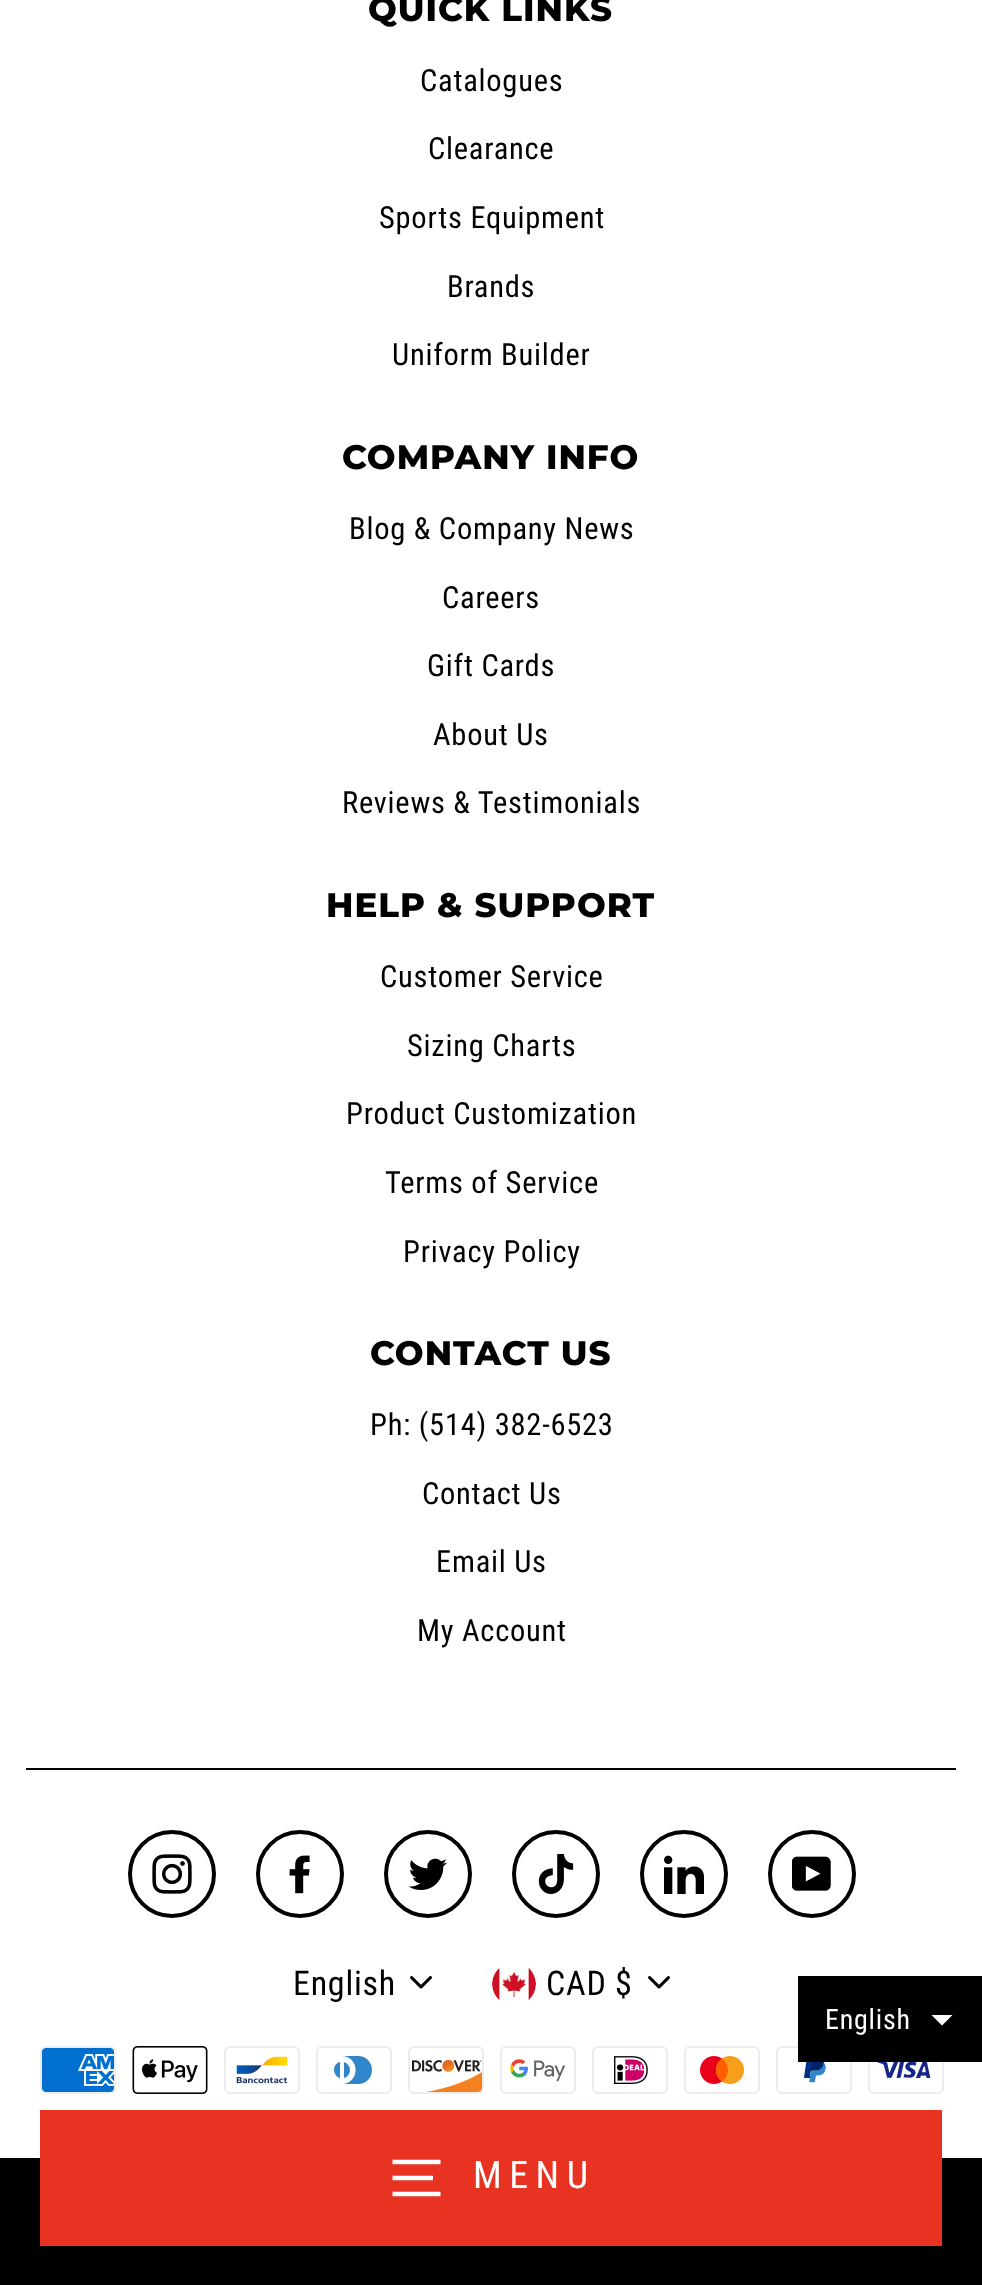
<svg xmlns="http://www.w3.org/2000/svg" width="982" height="2285">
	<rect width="100%" height="100%" fill="#FFFFFF" />
	<rect x="26" y="1768" width="930" height="2" fill="#000000" />
	<text x="368" y="21" font-family="Montserrat" font-size="34" font-weight="800" letter-spacing="1" fill="#000000">QUICK LINKS</text>
	<g font-family="Roboto Condensed" font-size="30.5" letter-spacing="0.75" fill="#000000">
		<text x="420" y="91">Catalogues</text>
		<text x="428" y="159">Clearance</text>
		<text x="379" y="228">Sports Equipment</text>
		<text x="447" y="297">Brands</text>
		<text x="392" y="365">Uniform Builder</text>
	</g>
	<text x="342" y="469" font-family="Montserrat" font-size="34" font-weight="800" letter-spacing="1" fill="#000000">COMPANY INFO</text>
	<g font-family="Roboto Condensed" font-size="30.5" letter-spacing="0.75" fill="#000000">
		<text x="349" y="539">Blog &amp; Company News</text>
		<text x="442" y="608">Careers</text>
		<text x="427" y="676">Gift Cards</text>
		<text x="433" y="745">About Us</text>
		<text x="342" y="813">Reviews &amp; Testimonials</text>
	</g>
	<text x="326" y="917" font-family="Montserrat" font-size="34" font-weight="800" letter-spacing="1" fill="#000000">HELP &amp; SUPPORT</text>
	<g font-family="Roboto Condensed" font-size="30.5" letter-spacing="0.75" fill="#000000">
		<text x="380" y="987">Customer Service</text>
		<text x="407" y="1056">Sizing Charts</text>
		<text x="346" y="1124">Product Customization</text>
		<text x="385" y="1193">Terms of Service</text>
		<text x="403" y="1262">Privacy Policy</text>
	</g>
	<text x="370" y="1365" font-family="Montserrat" font-size="34" font-weight="800" letter-spacing="1" fill="#000000">CONTACT US</text>
	<g font-family="Roboto Condensed" font-size="30.5" letter-spacing="0.75" fill="#000000">
		<text x="370" y="1435">Ph: (514) 382-6523</text>
		<text x="422" y="1504">Contact Us</text>
		<text x="436" y="1572">Email Us</text>
		<text x="417" y="1641">My Account</text>
	</g>
	<circle cx="172" cy="1874" r="42" fill="none" stroke="#000000" stroke-width="4" />
	<image x="152" y="1854" width="40" height="40" href="assets/img1.png" />
	<circle cx="300" cy="1874" r="42" fill="none" stroke="#000000" stroke-width="4" />
	<image x="289" y="1855" width="21" height="39" href="assets/img2.png" />
	<circle cx="428" cy="1874" r="42" fill="none" stroke="#000000" stroke-width="4" />
	<image x="408" y="1858" width="39" height="32" href="assets/img3.png" />
	<circle cx="556" cy="1874" r="42" fill="none" stroke="#000000" stroke-width="4" />
	<image x="538" y="1854" width="36" height="40" href="assets/img4.png" />
	<circle cx="684" cy="1874" r="42" fill="none" stroke="#000000" stroke-width="4" />
	<image x="664" y="1855" width="40" height="39" href="assets/img5.png" />
	<circle cx="812" cy="1874" r="42" fill="none" stroke="#000000" stroke-width="4" />
	<image x="792" y="1856" width="39" height="35" href="assets/img6.png" />
	<image x="410" y="1976" width="22" height="13" href="assets/img7.png" />
	<text x="293" y="1995" font-family="Roboto Condensed" font-size="34" letter-spacing="0.75" fill="#000000">English</text>
	<image x="648" y="1976" width="22" height="13" href="assets/img7.png" />
	<image x="492" y="1964" width="44" height="40" href="assets/img8.png" />
	<text x="546" y="1995" font-family="Roboto Condensed" font-size="34" letter-spacing="0.75" fill="#000000">CAD $</text>
	<image x="40" y="2046" width="76" height="48" href="assets/img9.png" />
	<image x="132" y="2046" width="76" height="48" href="assets/img10.png" />
	<image x="224" y="2046" width="76" height="48" href="assets/img11.png" />
	<image x="316" y="2046" width="76" height="48" href="assets/img12.png" />
	<image x="408" y="2046" width="76" height="48" href="assets/img13.png" />
	<image x="500" y="2046" width="76" height="48" href="assets/img14.png" />
	<image x="592" y="2046" width="76" height="48" href="assets/img15.png" />
	<image x="684" y="2046" width="76" height="48" href="assets/img16.png" />
	<image x="776" y="2046" width="76" height="48" href="assets/img17.png" />
	<image x="868" y="2062" width="76" height="32" href="assets/img18.png" />
	<rect x="0" y="2158" width="982" height="127" fill="#000000" />
	<rect x="40" y="2110" width="902" height="136" fill="#E83323" />
	<path d="M392.5 2162H440.5M392.5 2178H433M392.5 2194H440.5" fill="none" stroke="#FFFFFF" stroke-width="4.7" />
	<text x="473" y="2188" font-family="Roboto Condensed" font-size="38" letter-spacing="7.5" fill="#FFFFFF">MENU</text>
	<rect x="798" y="1976" width="184" height="86" fill="#000000" />
	<text x="825" y="2029" font-family="Roboto Condensed" font-size="28" letter-spacing="0.75" fill="#FFFFFF">English</text>
	<path d="M930 2015L942 2027L954 2015" fill="#FFFFFF" stroke="#000000" stroke-width="2" />
</svg>
